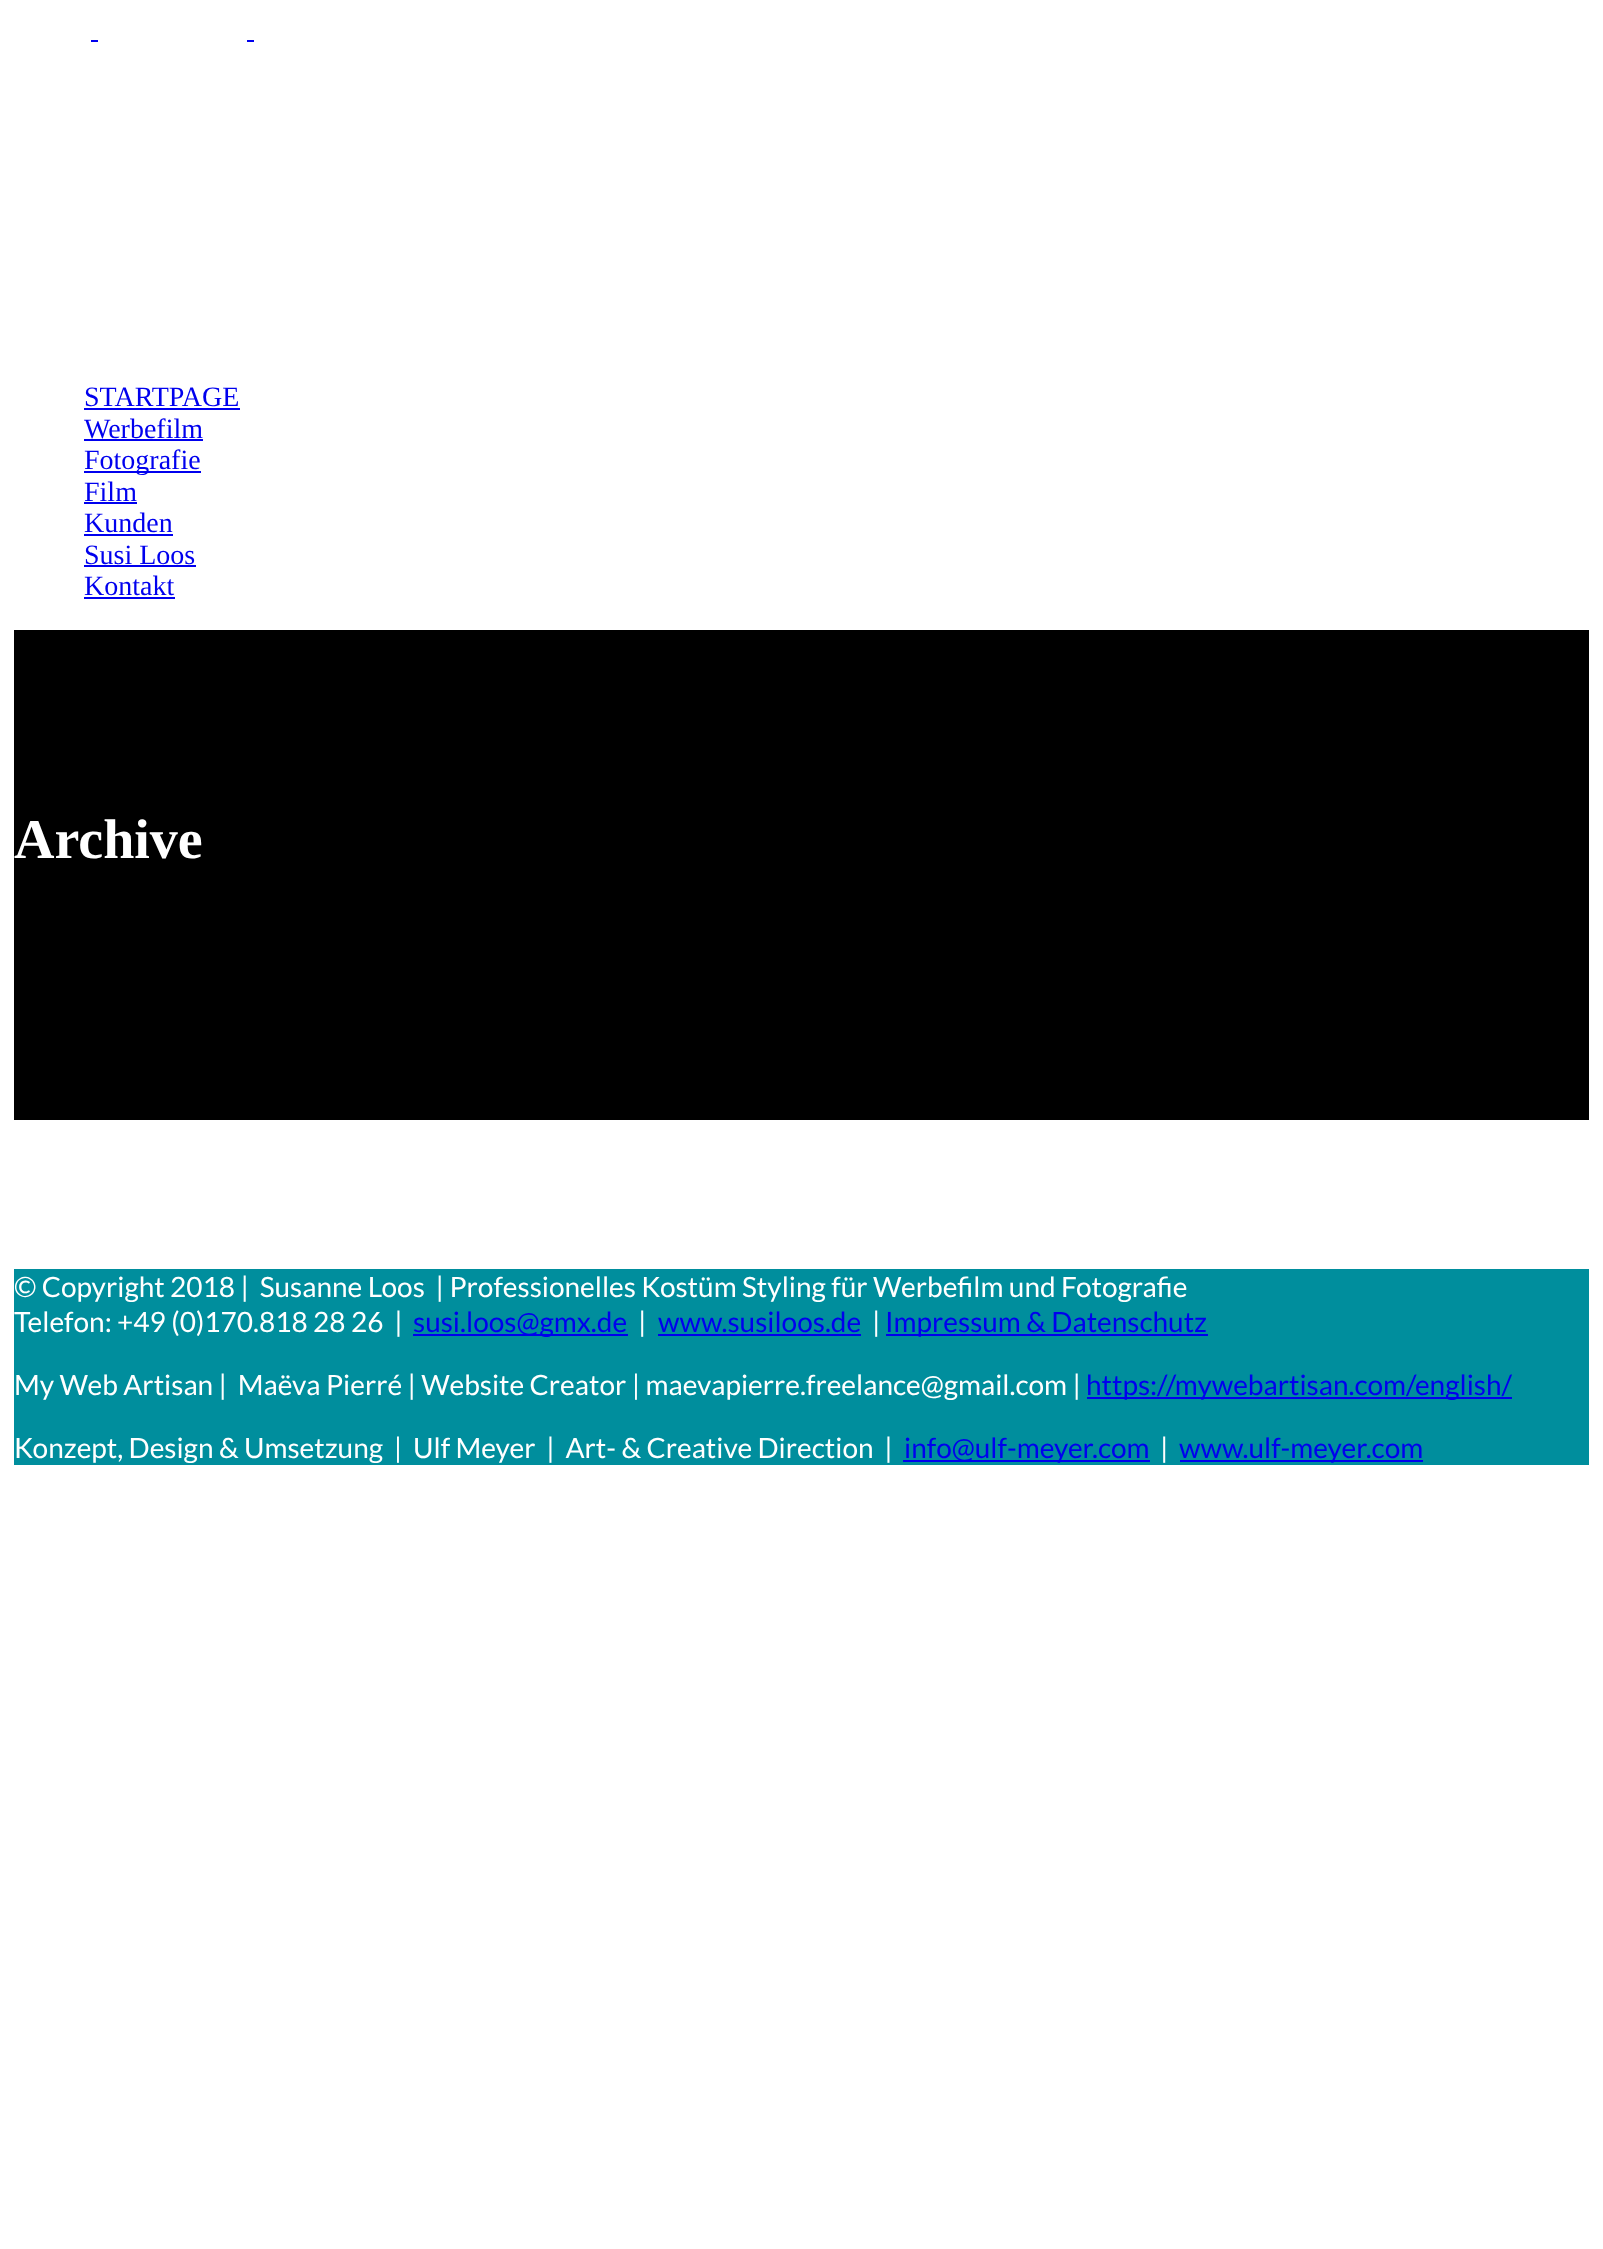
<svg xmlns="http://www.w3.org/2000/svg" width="1603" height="2249">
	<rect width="100%" height="100%" fill="#FFFFFF" />
	<rect x="91" y="40" width="7" height="2" fill="#0000EE" />
	<rect x="247" y="40" width="7" height="2" fill="#0000EE" />
	<text x="84" y="406" font-family="Liberation Serif" font-size="28" fill="#0000EE">STARTPAGE</text>
	<rect x="84" y="408" width="156" height="2" fill="#0000EE" />
	<text x="84" y="438" font-family="Liberation Serif" font-size="28" fill="#0000EE">Werbefilm</text>
	<rect x="84" y="439" width="119" height="2" fill="#0000EE" />
	<rect x="84" y="471" width="117" height="2" fill="#0000EE" />
	<g font-family="Liberation Serif" font-size="28" fill="#0000EE">
		<text x="84" y="469">Fotografie</text>
		<text x="84" y="501">Film</text>
	</g>
	<rect x="84" y="502" width="53" height="2" fill="#0000EE" />
	<text x="84" y="532" font-family="Liberation Serif" font-size="28" fill="#0000EE">Kunden</text>
	<rect x="84" y="534" width="89" height="2" fill="#0000EE" />
	<text x="84" y="564" font-family="Liberation Serif" font-size="28" fill="#0000EE">Susi Loos</text>
	<rect x="84" y="565" width="112" height="2" fill="#0000EE" />
	<text x="84" y="595" font-family="Liberation Serif" font-size="28" fill="#0000EE">Kontakt</text>
	<rect x="84" y="597" width="91" height="2" fill="#0000EE" />
	<rect x="14" y="630" width="1575" height="490" fill="#000000" />
	<text x="14" y="858" font-family="Liberation Serif" font-size="56" font-weight="700" fill="#FFFFFF">Archive</text>
	<rect x="14" y="1269" width="1575" height="196" fill="#008E9D" />
	<g font-family="Lato" font-size="28" fill="#FFFFFF">
		<text x="14" y="1297" xml:space="preserve">© Copyright 2018 |  Susanne Loos  | Professionelles Kostüm Styling für Werbefilm und Fotografie</text>
		<text x="14" y="1332" xml:space="preserve">Telefon: +49 (0)170.818 28 26  |</text>
	</g>
	<rect x="413" y="1334" width="215" height="2" fill="#0000EE" />
	<text x="413" y="1332" font-family="Lato" font-size="28" fill="#0000EE">susi.loos@gmx.de</text>
	<text x="638" y="1332" font-family="Lato" font-size="28" fill="#FFFFFF">|</text>
	<text x="658" y="1332" font-family="Lato" font-size="28" fill="#0000EE">www.susiloos.de</text>
	<rect x="658" y="1334" width="203" height="2" fill="#0000EE" />
	<text x="872" y="1332" font-family="Lato" font-size="28" fill="#FFFFFF">|</text>
	<rect x="886" y="1334" width="322" height="2" fill="#0000EE" />
	<text x="885" y="1332" font-family="Lato" font-size="28" fill="#0000EE">Impressum &amp; Datenschutz</text>
	<text x="14" y="1395" font-family="Lato" font-size="28" fill="#FFFFFF" xml:space="preserve">My Web Artisan |  Maëva Pierré | Website Creator | maevapierre.freelance@gmail.com |</text>
	<rect x="1087" y="1397" width="425" height="2" fill="#0000EE" />
	<text x="1086" y="1395" font-family="Lato" font-size="28" fill="#0000EE">https://mywebartisan.com/english/</text>
	<text x="14" y="1458" font-family="Lato" font-size="28" fill="#FFFFFF" xml:space="preserve">Konzept, Design &amp; Umsetzung  |  Ulf Meyer  |  Art- &amp; Creative Direction  |</text>
	<rect x="903" y="1460" width="247" height="2" fill="#0000EE" />
	<text x="904" y="1458" font-family="Lato" font-size="28" fill="#0000EE">info@ulf-meyer.com</text>
	<text x="1160" y="1458" font-family="Lato" font-size="28" fill="#FFFFFF">|</text>
	<rect x="1180" y="1460" width="243" height="2" fill="#0000EE" />
	<text x="1179" y="1458" font-family="Lato" font-size="28" fill="#0000EE">www.ulf-meyer.com</text>
</svg>
